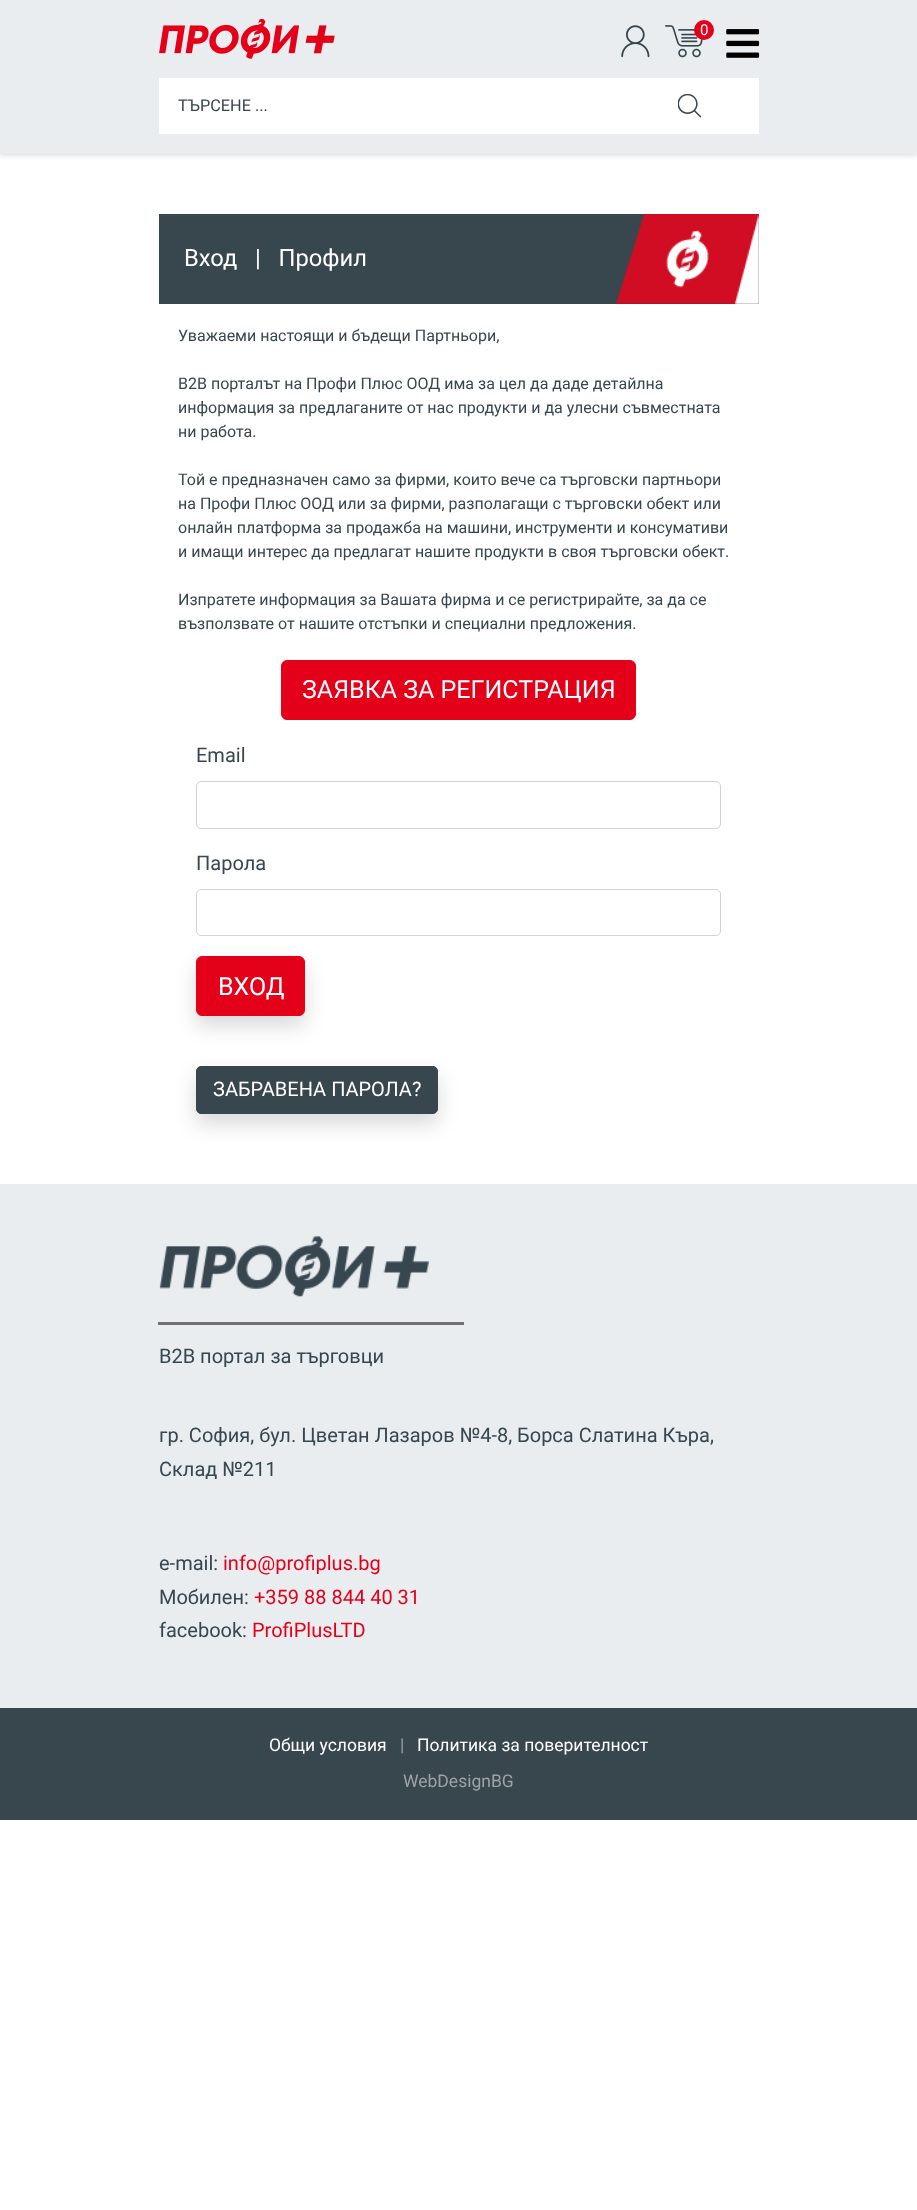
<svg xmlns="http://www.w3.org/2000/svg" width="917" height="2210">
	<rect width="100%" height="100%" fill="#FFFFFF" />
	<rect x="0" y="0" width="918" height="154" fill="#000000" fill-opacity="0.22" filter="blur(3px)" />
	<rect x="0" y="0" width="917" height="154" fill="#EAEDEF" />
	<image x="159" y="19" width="176" height="40" href="assets/img1.png" />
	<image x="621" y="25" width="29" height="33" href="assets/img2.png" />
	<image x="665" y="25" width="38" height="33" href="assets/img3.png" />
	<circle cx="704" cy="30" r="10" fill="#E50019" />
	<text x="700" y="35" font-family="Roboto" font-size="15" fill="#FFFFFF">0</text>
	<image x="726" y="29" width="34" height="29" href="assets/img4.png" />
	<rect x="159" y="78" width="600" height="56" fill="#FFFFFF" />
	<text x="178" y="111" font-family="Roboto" font-size="16.25" fill="#38464E">ТЪРСЕНЕ ...</text>
	<image x="678" y="94" width="23" height="24" href="assets/img5.png" />
	<rect x="159" y="214" width="600" height="90" fill="#38464E" />
	<image x="616" y="214" width="143" height="90" href="assets/img6.png" />
	<text x="184" y="266" font-family="Roboto" font-size="23.75" fill="#FFFFFF" xml:space="preserve">Вход   |   Профил</text>
	<g font-family="Roboto" font-size="16" fill="#38464E">
		<text x="178" y="341">Уважаеми настоящи и бъдещи Партньори,</text>
		<text x="178" y="389">B2B порталът на Профи Плюс ООД има за цел да даде детайлна</text>
		<text x="178" y="413">информация за предлаганите от нас продукти и да улесни съвместната</text>
		<text x="178" y="437">ни работа.</text>
		<text x="178" y="485">Той е предназначен само за фирми, които вече са търговски партньори</text>
		<text x="178" y="509">на Профи Плюс ООД или за фирми, разполагащи с търговски обект или</text>
		<text x="178" y="533">онлайн платформа за продажба на машини, инструменти и консумативи</text>
		<text x="178" y="557">и имащи интерес да предлагат нашите продукти в своя търговски обект.</text>
		<text x="178" y="605">Изпратете информация за Вашата фирма и се регистрирайте, за да се</text>
		<text x="178" y="629">възползвате от нашите отстъпки и специални предложения.</text>
	</g>
	<rect x="281.5" y="660.5" width="354" height="59" rx="5.5" fill="#E50019" stroke="#E50019" />
	<text x="302" y="698" font-family="Roboto" font-size="25" fill="#FFFFFF">ЗАЯВКА ЗА РЕГИСТРАЦИЯ</text>
	<text x="196" y="762" font-family="Roboto" font-size="20" fill="#38464E">Email</text>
	<rect x="196.5" y="781.5" width="524" height="47" rx="4.5" fill="none" stroke="#CED4DA" />
	<text x="196" y="870" font-family="Roboto" font-size="20" fill="#38464E">Парола</text>
	<rect x="196.5" y="889.5" width="524" height="46" rx="4.5" fill="none" stroke="#CED4DA" />
	<rect x="196" y="966" width="109" height="60" rx="6" fill="#000000" fill-opacity="0.15" filter="blur(10px)" />
	<rect x="196.5" y="956.5" width="108" height="59" rx="5.5" fill="#E50019" stroke="#E50019" />
	<text x="218" y="995" font-family="Roboto" font-size="25" fill="#FFFFFF">ВХОД</text>
	<rect x="196" y="1076" width="242" height="48" rx="5" fill="#000000" fill-opacity="0.15" filter="blur(10px)" />
	<rect x="196.5" y="1066.5" width="241" height="47" rx="4.5" fill="#38464E" stroke="#38464E" />
	<text x="213" y="1096" font-family="Roboto" font-size="20" fill="#FFFFFF">ЗАБРАВЕНА ПАРОЛА?</text>
	<rect x="0" y="1184" width="917" height="524" fill="#E9EDF0" />
	<image x="159" y="1236" width="270" height="61" href="assets/img7.png" />
	<rect x="158" y="1322" width="306" height="3" fill="#707070" />
	<g font-family="Roboto" font-size="20" fill="#38464E">
		<text x="159" y="1363">B2B портал за търговци</text>
		<text x="159" y="1442">гр. София, бул. Цветан Лазаров №4-8, Борса Слатина Къра,</text>
		<text x="159" y="1476">Склад №211</text>
		<text x="159" y="1570">e-mail:</text>
	</g>
	<text x="223" y="1570" font-family="Roboto" font-size="20" fill="#E50019">info@profiplus.bg</text>
	<text x="159" y="1604" font-family="Roboto" font-size="20" fill="#38464E">Мобилен:</text>
	<text x="254" y="1604" font-family="Roboto" font-size="20" fill="#E50019">+359 88 844 40 31</text>
	<text x="159" y="1637" font-family="Roboto" font-size="20" fill="#38464E">facebook:</text>
	<text x="252" y="1637" font-family="Roboto" font-size="20" fill="#E50019">ProfiPlusLTD</text>
	<rect x="0" y="1708" width="917" height="112" fill="#38464E" />
	<text x="269" y="1751" font-family="Roboto" font-size="17.5" fill="#FFFFFF">Общи условия</text>
	<text x="400" y="1751" font-family="Roboto" font-size="17.5" fill="#9CA3A7">|</text>
	<text x="417" y="1751" font-family="Roboto" font-size="17.5" fill="#FFFFFF">Политика за поверителност</text>
	<text x="403" y="1787" font-family="Roboto" font-size="17.5" fill="#9CA3A7">WebDesignBG</text>
</svg>
